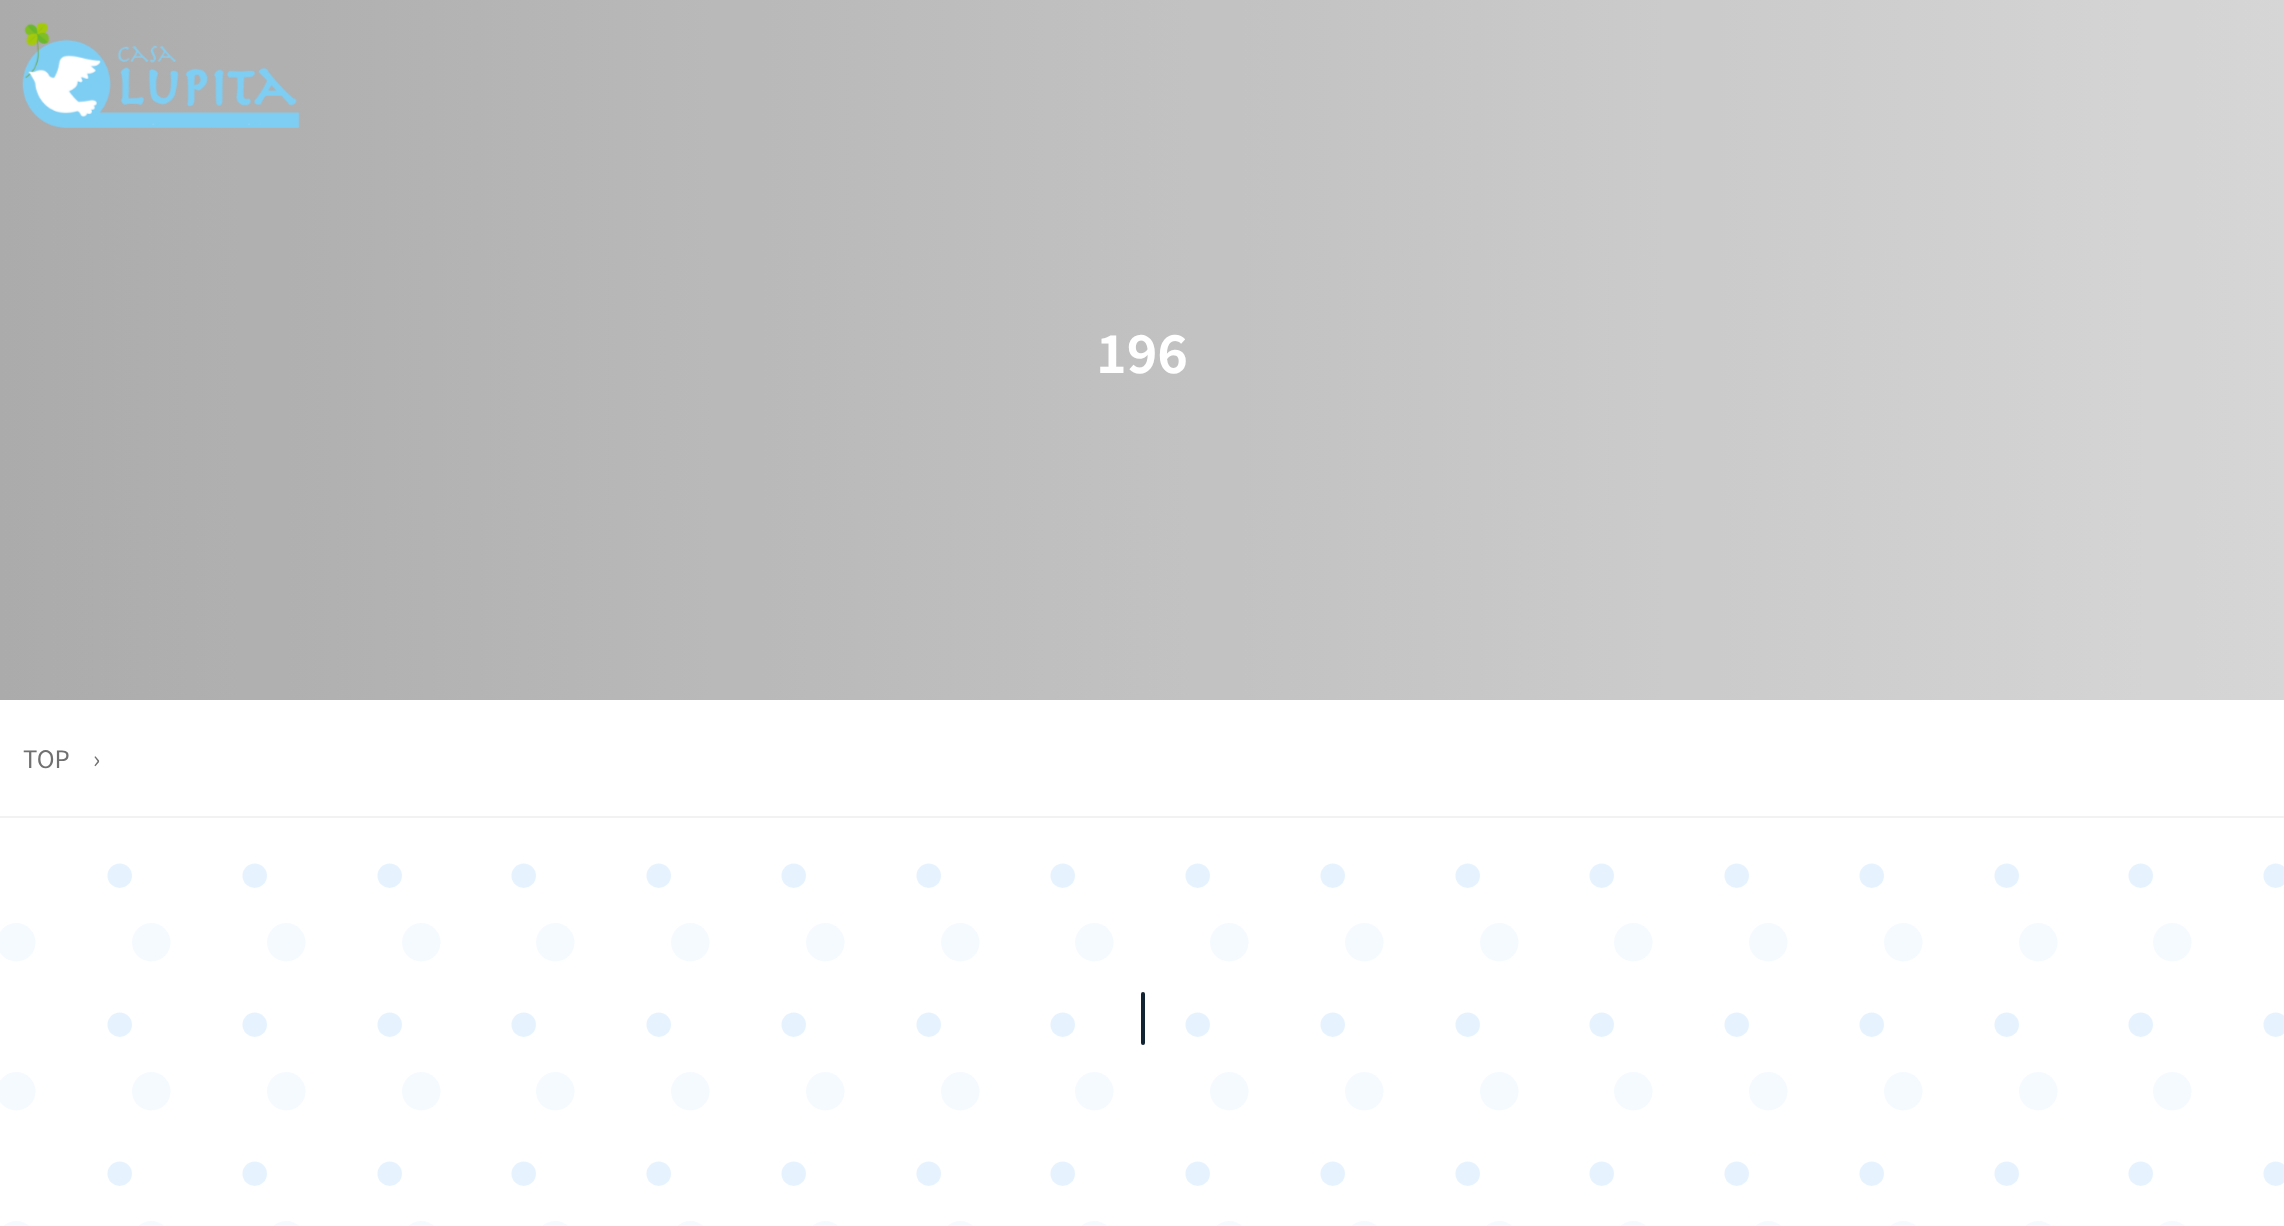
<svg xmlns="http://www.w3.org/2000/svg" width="2284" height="1226">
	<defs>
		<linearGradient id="g1" gradientUnits="userSpaceOnUse" x1="0" y1="350" x2="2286" y2="350"><stop offset="0" stop-color="#BFBFBF" /><stop offset="1" stop-color="#EFEFEF" /></linearGradient>
	</defs>
	<rect width="100%" height="100%" fill="#FFFFFF" />
	<image x="0" y="863" width="2284" height="363" href="assets/img1.png" />
	<rect x="0" y="0" width="2284" height="700" fill="url(#g1)" />
	<rect x="0" y="0" width="2284" height="700" fill="#000000" fill-opacity="0.1" />
	<image x="22" y="22" width="278" height="106" href="assets/img2.png" />
	<text x="1096" y="373" font-family="Noto Sans JP" font-size="52" font-weight="700" fill="#FFFFFF">196</text>
	<rect x="0" y="816" width="2284" height="2" fill="#F2F2F2" />
	<g font-family="Noto Sans JP" font-size="24" fill="#707070">
		<text x="23" y="768">TOP</text>
		<text x="93" y="768">›</text>
	</g>
	<rect x="1141" y="992" width="4" height="53" rx="2" fill="#122333" />
</svg>
